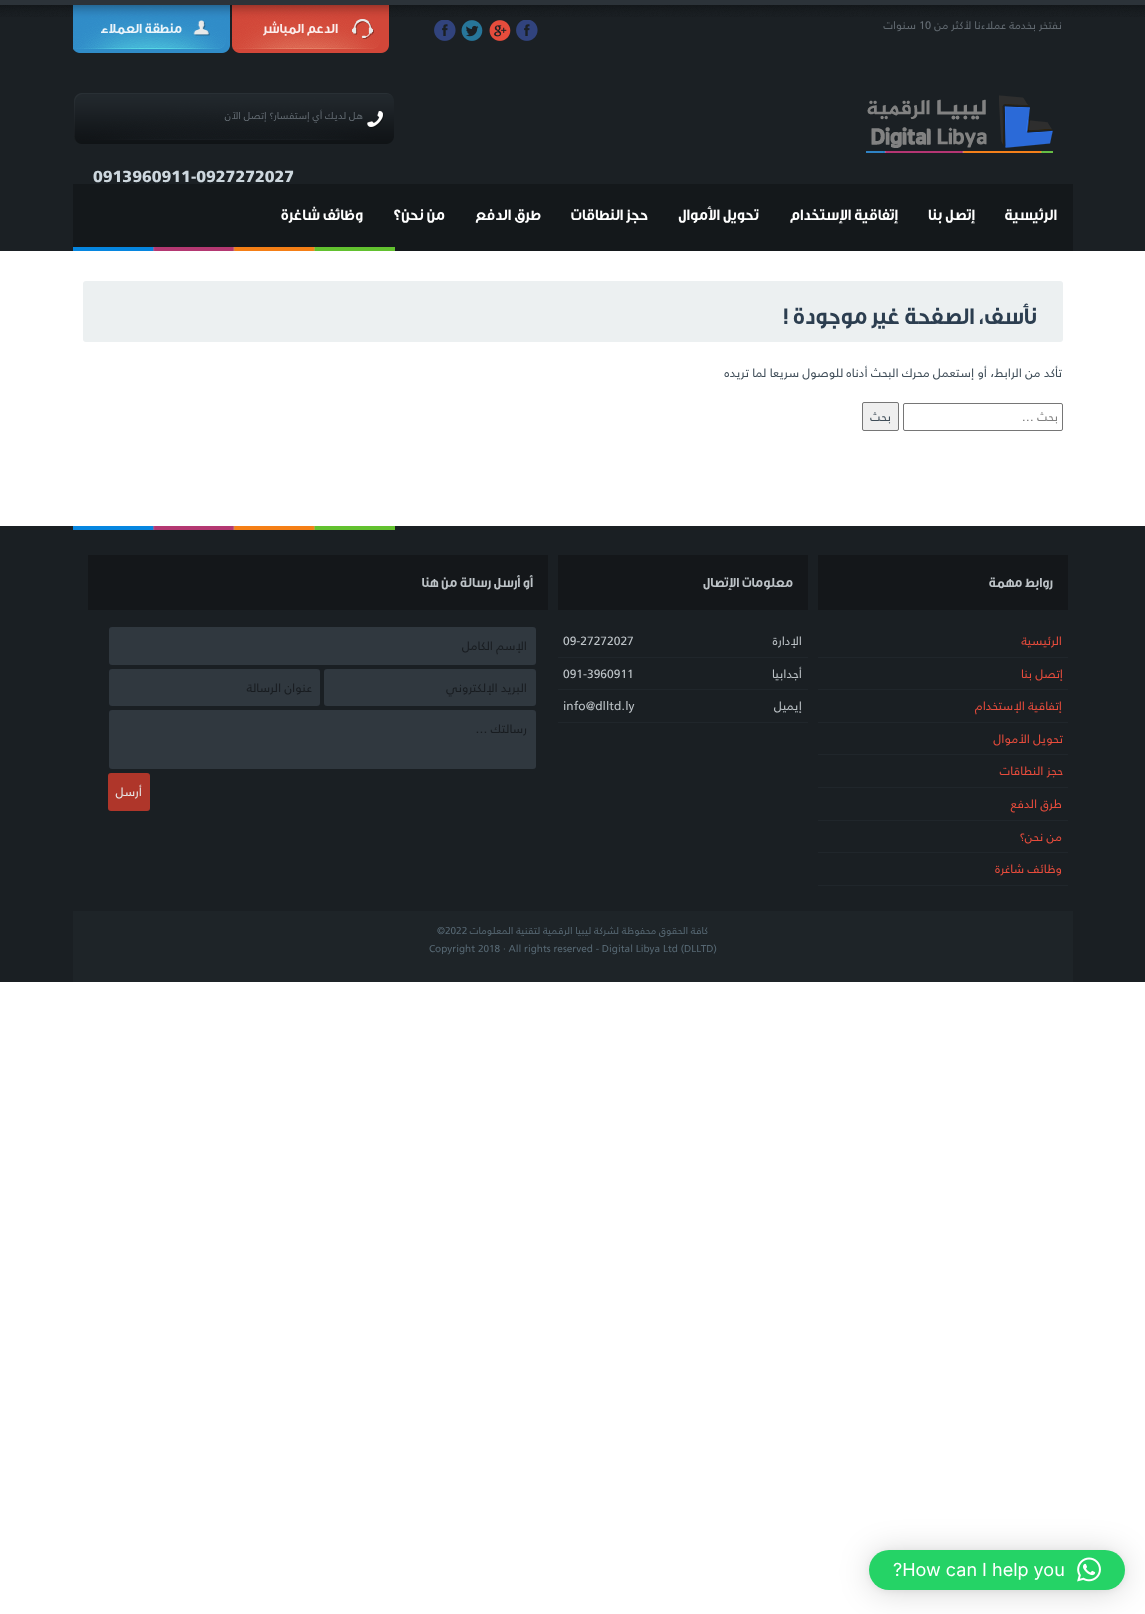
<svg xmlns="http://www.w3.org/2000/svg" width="1145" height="1614">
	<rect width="100%" height="100%" fill="#FFFFFF" />
	<rect x="0" y="0" width="1145" height="5" fill="#2C3339" />
	<rect x="0" y="17" width="1145" height="234" fill="#1B2024" />
	<image x="0" y="5" width="1145" height="12" href="assets/img1.png" />
	<text x="1062" y="29" font-family="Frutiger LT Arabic" font-size="11" direction="rtl" fill="#626A71">نفتخر بخدمة عملاءنا لأكثر من</text>
	<text x="919" y="29" font-family="Frutiger LT Arabic" font-size="11" fill="#626A71">10</text>
	<text x="916" y="29" font-family="Frutiger LT Arabic" font-size="11" direction="rtl" fill="#626A71">سنوات</text>
	<image x="516" y="20" width="22" height="21" href="assets/img2.png" />
	<image x="489" y="20" width="22" height="21" href="assets/img3.png" />
	<image x="461" y="20" width="22" height="21" href="assets/img4.png" />
	<image x="434" y="20" width="22" height="21" href="assets/img2.png" />
	<image x="232" y="5" width="157" height="48" href="assets/img5.png" />
	<text x="338" y="33" font-family="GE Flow" font-size="14" font-weight="700" direction="rtl" fill="#FBEDEC">الدعم المباشر</text>
	<image x="73" y="5" width="157" height="48" href="assets/img6.png" />
	<text x="182" y="33" font-family="GE Flow" font-size="14" font-weight="700" direction="rtl" fill="#EBF4FA">منطقة العملاء</text>
	<image x="866" y="95" width="187" height="58" href="assets/img7.png" />
	<image x="74" y="93" width="320" height="51" href="assets/img8.png" />
	<text x="363" y="119" font-family="Frutiger LT Arabic" font-size="10" direction="rtl" fill="#626A71">هل لديك أي إستفسار؟ إتصل الآن</text>
	<text x="93" y="182" font-family="Frutiger LT Arabic" font-size="16" font-weight="900" fill="#CDD7DE">0913960911-0927272027</text>
	<rect x="73" y="184" width="1000" height="67" fill="#14181B" />
	<g font-family="GE Flow" font-size="16" font-weight="700" direction="rtl" fill="#FFFFFF">
		<text x="1057" y="220">الرئيسية</text>
		<text x="975" y="220">إتصل بنا</text>
		<text x="898" y="220">إتفاقية الإستخدام</text>
		<text x="759" y="220">تحويل الأموال</text>
		<text x="648" y="220">حجز النطاقات</text>
		<text x="541" y="220">طرق الدفع</text>
		<text x="445" y="220">من نحن؟</text>
		<text x="363" y="220">وظائف شاغرة</text>
	</g>
	<image x="73" y="247" width="322" height="4" href="assets/img9.png" />
	<rect x="83" y="281" width="980" height="61" rx="3" fill="#ECF0F1" />
	<text x="1037" y="324" font-family="GE Flow" font-size="24" font-weight="700" direction="rtl" fill="#2C3E50">نأسف، الصفحة غير موجودة !</text>
	<text x="1062" y="377" font-family="Frutiger LT Arabic" font-size="12" direction="rtl" fill="#3F4D58">تأكد من الرابط، أو إستعمل محرك البحث أدناه للوصول سريعا لما تريده</text>
	<rect x="903.5" y="403.5" width="159" height="27" rx="1.5" fill="none" stroke="#767676" />
	<text x="1058" y="421" font-family="Frutiger LT Arabic" font-size="12" direction="rtl" fill="#808080">بحث …</text>
	<rect x="862.5" y="402.5" width="36" height="28" rx="1.5" fill="#EFEFEF" stroke="#767676" />
	<text x="891" y="421" font-family="Frutiger LT Arabic" font-size="12" direction="rtl" fill="#3F4D58">بحث</text>
	<rect x="0" y="526" width="1145" height="456" fill="#1A1F23" />
	<image x="73" y="526" width="322" height="4" href="assets/img9.png" />
	<rect x="818" y="555" width="250" height="55" fill="#14171A" />
	<text x="1053" y="587" font-family="GE Flow" font-size="14" font-weight="700" direction="rtl" fill="#BDC3C7">روابط مهمة</text>
	<rect x="818" y="657" width="250" height="1" fill="#20262B" />
	<text x="1062" y="645" font-family="Frutiger LT Arabic" font-size="12" direction="rtl" fill="#E74C3C">الرئيسية</text>
	<rect x="818" y="689" width="250" height="1" fill="#20262B" />
	<text x="1063" y="678" font-family="Frutiger LT Arabic" font-size="12" direction="rtl" fill="#E74C3C">إتصل بنا</text>
	<rect x="818" y="722" width="250" height="1" fill="#20262B" />
	<text x="1062" y="710" font-family="Frutiger LT Arabic" font-size="12" direction="rtl" fill="#E74C3C">إتفاقية الإستخدام</text>
	<rect x="818" y="754" width="250" height="1" fill="#20262B" />
	<text x="1063" y="743" font-family="Frutiger LT Arabic" font-size="12" direction="rtl" fill="#E74C3C">تحويل الأموال</text>
	<rect x="818" y="787" width="250" height="1" fill="#20262B" />
	<text x="1063" y="775" font-family="Frutiger LT Arabic" font-size="12" direction="rtl" fill="#E74C3C">حجز النطاقات</text>
	<rect x="818" y="820" width="250" height="1" fill="#20262B" />
	<text x="1062" y="808" font-family="Frutiger LT Arabic" font-size="12" direction="rtl" fill="#E74C3C">طرق الدفع</text>
	<rect x="818" y="852" width="250" height="1" fill="#20262B" />
	<text x="1062" y="841" font-family="Frutiger LT Arabic" font-size="12" direction="rtl" fill="#E74C3C">من نحن؟</text>
	<rect x="818" y="885" width="250" height="1" fill="#20262B" />
	<text x="1062" y="873" font-family="Frutiger LT Arabic" font-size="12" direction="rtl" fill="#E74C3C">وظائف شاغرة</text>
	<rect x="558" y="555" width="250" height="55" fill="#14171A" />
	<text x="793" y="587" font-family="GE Flow" font-size="14" font-weight="700" direction="rtl" fill="#BDC3C7">معلومات الإتصال</text>
	<rect x="558" y="657" width="250" height="1" fill="#20262B" />
	<text x="802" y="645" font-family="Frutiger LT Arabic" font-size="12" direction="rtl" fill="#BDC3C7">الإدارة</text>
	<text x="563" y="645" font-family="Frutiger LT Arabic" font-size="12" fill="#BDC3C7">09-27272027</text>
	<rect x="558" y="689" width="250" height="1" fill="#20262B" />
	<text x="802" y="678" font-family="Frutiger LT Arabic" font-size="12" direction="rtl" fill="#BDC3C7">أجدابيا</text>
	<text x="563" y="678" font-family="Frutiger LT Arabic" font-size="12" fill="#BDC3C7">091-3960911</text>
	<rect x="558" y="722" width="250" height="1" fill="#20262B" />
	<text x="802" y="710" font-family="Frutiger LT Arabic" font-size="12" direction="rtl" fill="#BDC3C7">إيميل</text>
	<text x="563" y="710" font-family="Frutiger LT Arabic" font-size="12" fill="#BDC3C7">info@dlltd.ly</text>
	<rect x="88" y="555" width="460" height="55" fill="#14171A" />
	<text x="533" y="587" font-family="GE Flow" font-size="14" font-weight="700" direction="rtl" fill="#BDC3C7">أو أرسل رسالة من هنا</text>
	<rect x="109" y="627" width="427" height="38" rx="3" fill="#30383F" />
	<text x="527" y="650" font-family="Frutiger LT Arabic" font-size="12" direction="rtl" fill="#181C20">الإسم الكامل</text>
	<rect x="324" y="669" width="212" height="37" rx="3" fill="#30383F" />
	<text x="527" y="692" font-family="Frutiger LT Arabic" font-size="12" direction="rtl" fill="#181C20">البريد الإلكتروني</text>
	<rect x="109" y="669" width="211" height="37" rx="3" fill="#30383F" />
	<text x="312" y="692" font-family="Frutiger LT Arabic" font-size="12" direction="rtl" fill="#181C20">عنوان الرسالة</text>
	<rect x="109" y="710" width="427" height="59" rx="3" fill="#30383F" />
	<text x="527" y="733" font-family="Frutiger LT Arabic" font-size="12" direction="rtl" fill="#181C20">رسالتك ...</text>
	<rect x="108" y="773" width="42" height="38" rx="3" fill="#AF362A" />
	<text x="142" y="796" font-family="Frutiger LT Arabic" font-size="12" direction="rtl" fill="#E8E9E9">أرسل</text>
	<rect x="73" y="911" width="1000" height="71" fill="#1E2428" />
	<text x="708" y="934" font-family="Frutiger LT Arabic" font-size="10" direction="rtl" fill="#556671">كافة الحقوق محفوظة لشركة ليبيا الرقمية لتقنية المعلومات</text>
	<g font-family="Frutiger LT Arabic" font-size="10" fill="#556671">
		<text x="437" y="934">©2022</text>
		<text x="429" y="952">Copyright 2018 · All rights reserved - Digital Libya Ltd (DLLTD)</text>
	</g>
	<rect x="869" y="1552" width="256" height="40" rx="20" fill="#000000" fill-opacity="0.16" filter="blur(16px)" />
	<rect x="869" y="1551" width="256" height="40" rx="20" fill="#000000" fill-opacity="0.06" filter="blur(3px)" />
	<rect x="869" y="1550" width="256" height="40" rx="20" fill="#25D366" />
	<image x="1077" y="1557" width="24" height="25" href="assets/img10.png" />
	<text x="893" y="1576" font-family="Inter" font-size="18" fill="#FFFFFF">?How can I help you</text>
</svg>
